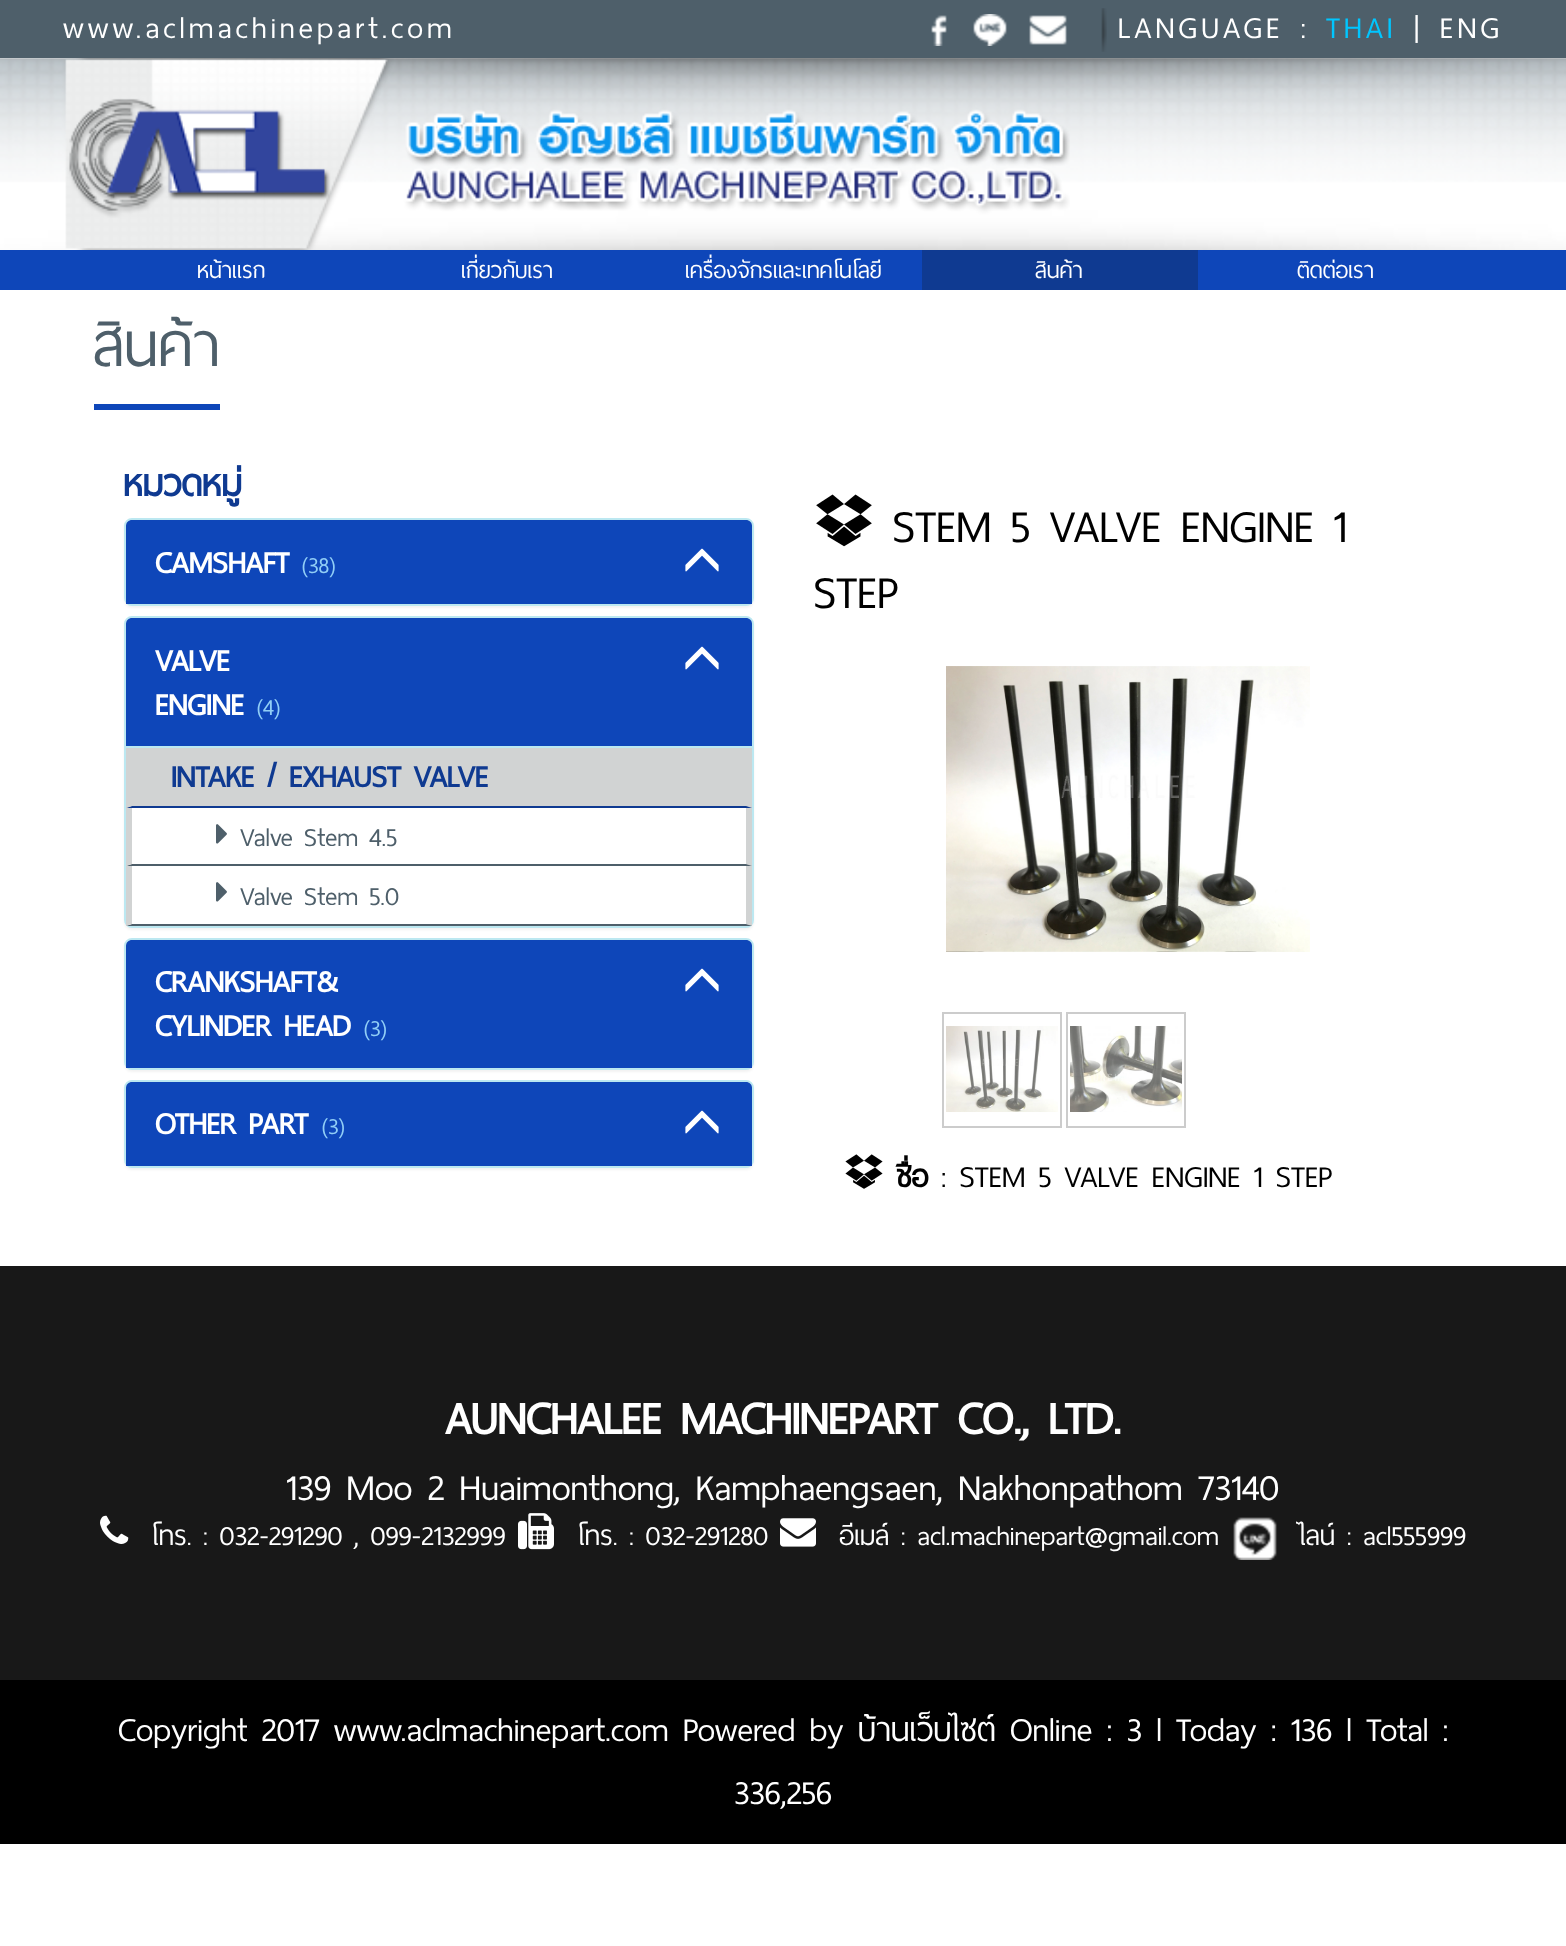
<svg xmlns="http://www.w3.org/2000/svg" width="1566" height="1946">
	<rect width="100%" height="100%" fill="#FFFFFF" />
	<rect x="0" y="0" width="1566" height="58" fill="#4E5F6A" />
	<text x="63" y="38" font-family="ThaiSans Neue" font-size="40" letter-spacing="4" fill="#FFFFFF">www.aclmachinepart.com</text>
	<image x="931" y="15" width="16" height="31" href="assets/img1.png" />
	<image x="973" y="14" width="34" height="32" href="assets/img2.png" />
	<image x="1029" y="15" width="38" height="30" href="assets/img3.png" />
	<image x="1101" y="8" width="6" height="44" href="assets/img4.png" />
	<text x="1118" y="38" font-family="ThaiSans Neue" font-size="40" letter-spacing="4" fill="#FFFFFF">LANGUAGE :</text>
	<text x="1326" y="38" font-family="ThaiSans Neue" font-size="40" letter-spacing="4" fill="#00C6FF">THAI</text>
	<text x="1414" y="38" font-family="ThaiSans Neue" font-size="40" letter-spacing="4" fill="#FFFFFF">| ENG</text>
	<image x="0" y="58" width="1566" height="192" href="assets/img5.png" />
	<image x="65" y="58" width="1005" height="192" href="assets/img6.png" />
	<rect x="0" y="250" width="1566" height="40" fill="#0E46B9" />
	<g font-family="ThaiSans Neue" font-size="30" fill="#FFFFFF">
		<text x="197" y="278">หน้าแรก</text>
		<text x="461" y="278">เกี่ยวกับเรา</text>
		<text x="685" y="278">เครื่องจักรและเทคโนโลยี</text>
	</g>
	<rect x="922" y="250" width="276" height="40" fill="#0F3A91" />
	<g font-family="ThaiSans Neue" font-size="30" fill="#FFFFFF">
		<text x="1035" y="278">สินค้า</text>
		<text x="1297" y="278">ติดต่อเรา</text>
	</g>
	<rect x="94" y="404" width="126" height="6" fill="#0E46B9" />
	<text x="93" y="366" font-family="ThaiSans Neue" font-size="80" fill="#4E5F6A">สินค้า</text>
	<text x="123" y="496" font-family="ThaiSans Neue" font-size="48" font-weight="700" fill="#0F3A91">หมวดหมู่</text>
	<rect x="124" y="520" width="630" height="88" rx="8" fill="#000000" fill-opacity="0.05" filter="blur(1px)" />
	<rect x="125" y="519" width="628" height="86" rx="7" fill="none" stroke="#BCE8F1" stroke-width="2" />
	<path d="M132 520H746C749.5 520 752 522.5 752 526V604H126V526C126 522.5 128.5 520 132 520Z" fill="#0E46B9" />
	<text x="155" y="573" font-family="ThaiSans Neue" font-size="40" font-weight="700" fill="#FFFFFF">CAMSHAFT</text>
	<text x="302" y="573" font-family="ThaiSans Neue" font-size="30" fill="#91CEF6">(38)</text>
	<image x="685" y="548" width="34" height="24" href="assets/img7.png" />
	<rect x="124" y="618" width="630" height="312" rx="8" fill="#000000" fill-opacity="0.05" filter="blur(1px)" />
	<rect x="125" y="617" width="628" height="310" rx="7" fill="#FFFFFF" stroke="#BCE8F1" stroke-width="2" />
	<path d="M132 618H746C749.5 618 752 620.5 752 624V746H126V624C126 620.5 128.5 618 132 618Z" fill="#0E46B9" />
	<text x="155" y="671" font-family="ThaiSans Neue" font-size="40" font-weight="700" fill="#FFFFFF">VALVE</text>
	<image x="685" y="646" width="34" height="24" href="assets/img7.png" />
	<text x="155" y="715" font-family="ThaiSans Neue" font-size="40" font-weight="700" fill="#FFFFFF">ENGINE</text>
	<text x="257" y="715" font-family="ThaiSans Neue" font-size="30" fill="#91CEF6">(4)</text>
	<rect x="126" y="746" width="626" height="2" fill="#BCE8F1" />
	<rect x="126" y="748" width="626" height="60" fill="#D1D3D3" />
	<path d="M752 808H126L132 806H746Z" fill="#0F3A91" />
	<path d="M126 808V748H132V806Z" fill="#D1D3D3" />
	<text x="171" y="787" font-family="ThaiSans Neue" font-size="40" font-weight="700" fill="#0F3A91">INTAKE / EXHAUST VALVE</text>
	<path d="M752 808V866L746 864V808Z" fill="#D1D3D3" />
	<path d="M752 866H126L132 864H746Z" fill="#4E5F6A" />
	<path d="M126 866V808H132V864Z" fill="#D1D3D3" />
	<image x="216" y="824" width="11" height="20" href="assets/img8.png" />
	<text x="240" y="846" font-family="ThaiSans Neue" font-size="34" fill="#4E5F6A">Valve Stem 4.5</text>
	<path d="M752 866V926L746 924V866Z" fill="#D1D3D3" />
	<path d="M752 926H126L132 924H746Z" fill="#4E5F6A" />
	<path d="M126 926V866H132V924Z" fill="#D1D3D3" />
	<image x="216" y="882" width="11" height="20" href="assets/img8.png" />
	<text x="240" y="905" font-family="ThaiSans Neue" font-size="34" fill="#4E5F6A">Valve Stem 5.0</text>
	<rect x="124" y="940" width="630" height="132" rx="8" fill="#000000" fill-opacity="0.05" filter="blur(1px)" />
	<rect x="125" y="939" width="628" height="130" rx="7" fill="none" stroke="#BCE8F1" stroke-width="2" />
	<path d="M132 940H746C749.5 940 752 942.5 752 946V1068H126V946C126 942.5 128.5 940 132 940Z" fill="#0E46B9" />
	<text x="155" y="992" font-family="ThaiSans Neue" font-size="40" font-weight="700" fill="#FFFFFF">CRANKSHAFT&amp;</text>
	<image x="685" y="968" width="34" height="24" href="assets/img7.png" />
	<text x="155" y="1036" font-family="ThaiSans Neue" font-size="40" font-weight="700" fill="#FFFFFF">CYLINDER HEAD</text>
	<text x="364" y="1036" font-family="ThaiSans Neue" font-size="30" fill="#91CEF6">(3)</text>
	<rect x="124" y="1082" width="630" height="88" rx="8" fill="#000000" fill-opacity="0.05" filter="blur(1px)" />
	<rect x="125" y="1081" width="628" height="86" rx="7" fill="none" stroke="#BCE8F1" stroke-width="2" />
	<path d="M132 1082H746C749.5 1082 752 1084.5 752 1088V1166H126V1088C126 1084.5 128.5 1082 132 1082Z" fill="#0E46B9" />
	<text x="155" y="1134" font-family="ThaiSans Neue" font-size="40" font-weight="700" fill="#FFFFFF">OTHER PART</text>
	<text x="322" y="1134" font-family="ThaiSans Neue" font-size="30" fill="#91CEF6">(3)</text>
	<image x="685" y="1110" width="34" height="24" href="assets/img7.png" />
	<image x="816" y="494" width="56" height="53" href="assets/img9.png" />
	<g font-family="ThaiSans Neue" font-size="60" fill="#000000">
		<text x="892" y="542">STEM 5 VALVE ENGINE 1</text>
		<text x="813" y="608">STEP</text>
	</g>
	<image x="946" y="666" width="364" height="286" href="assets/img10.png" />
	<image x="946" y="951" width="327" height="1" href="assets/img11.png" />
	<rect x="943" y="1013" width="118" height="114" fill="none" stroke="#CCCCCC" stroke-width="2" />
	<image x="946" y="1026" width="112" height="86" href="assets/img12.png" />
	<rect x="1067" y="1013" width="118" height="114" fill="none" stroke="#CCCCCC" stroke-width="2" />
	<image x="1070" y="1026" width="112" height="86" href="assets/img13.png" />
	<image x="845" y="1154" width="38" height="35" href="assets/img14.png" />
	<text x="896" y="1187" font-family="ThaiSans Neue" font-size="40" font-weight="700" fill="#000000">ชื่อ</text>
	<text x="941" y="1187" font-family="ThaiSans Neue" font-size="40" fill="#000000">: STEM 5 VALVE ENGINE 1 STEP</text>
	<rect x="0" y="1266" width="1566" height="414" fill="#181818" />
	<text x="445" y="1434" font-family="ThaiSans Neue" font-size="60" font-weight="700" fill="#FFFFFF">AUNCHALEE MACHINEPART CO., LTD.</text>
	<text x="286" y="1500" font-family="ThaiSans Neue" font-size="48" fill="#FFFFFF">139 Moo 2 Huaimonthong, Kamphaengsaen, Nakhonpathom 73140</text>
	<image x="100" y="1515" width="29" height="29" href="assets/img15.png" />
	<text x="151" y="1545" font-family="ThaiSans Neue" font-size="36" fill="#FFFFFF">โทร. : 032-291290 , 099-2132999</text>
	<image x="518" y="1513" width="36" height="37" href="assets/img16.png" />
	<text x="577" y="1545" font-family="ThaiSans Neue" font-size="36" fill="#FFFFFF">โทร. : 032-291280</text>
	<image x="780" y="1518" width="36" height="29" href="assets/img17.png" />
	<text x="839" y="1545" font-family="ThaiSans Neue" font-size="36" fill="#FFFFFF">อีเมล์ : acl.machinepart@gmail.com</text>
	<image x="1233" y="1517" width="44" height="43" href="assets/img18.png" />
	<text x="1296" y="1545" font-family="ThaiSans Neue" font-size="36" fill="#FFFFFF">ไลน์ : acl555999</text>
	<rect x="0" y="1680" width="1566" height="164" fill="#000000" />
	<g font-family="ThaiSans Neue" font-size="44" fill="#FFFFFF">
		<text x="118" y="1741">Copyright 2017 www.aclmachinepart.com Powered by บ้านเว็บไซต์ Online : 3 l Today : 136 l Total :</text>
		<text x="734" y="1804">336,256</text>
	</g>
</svg>
